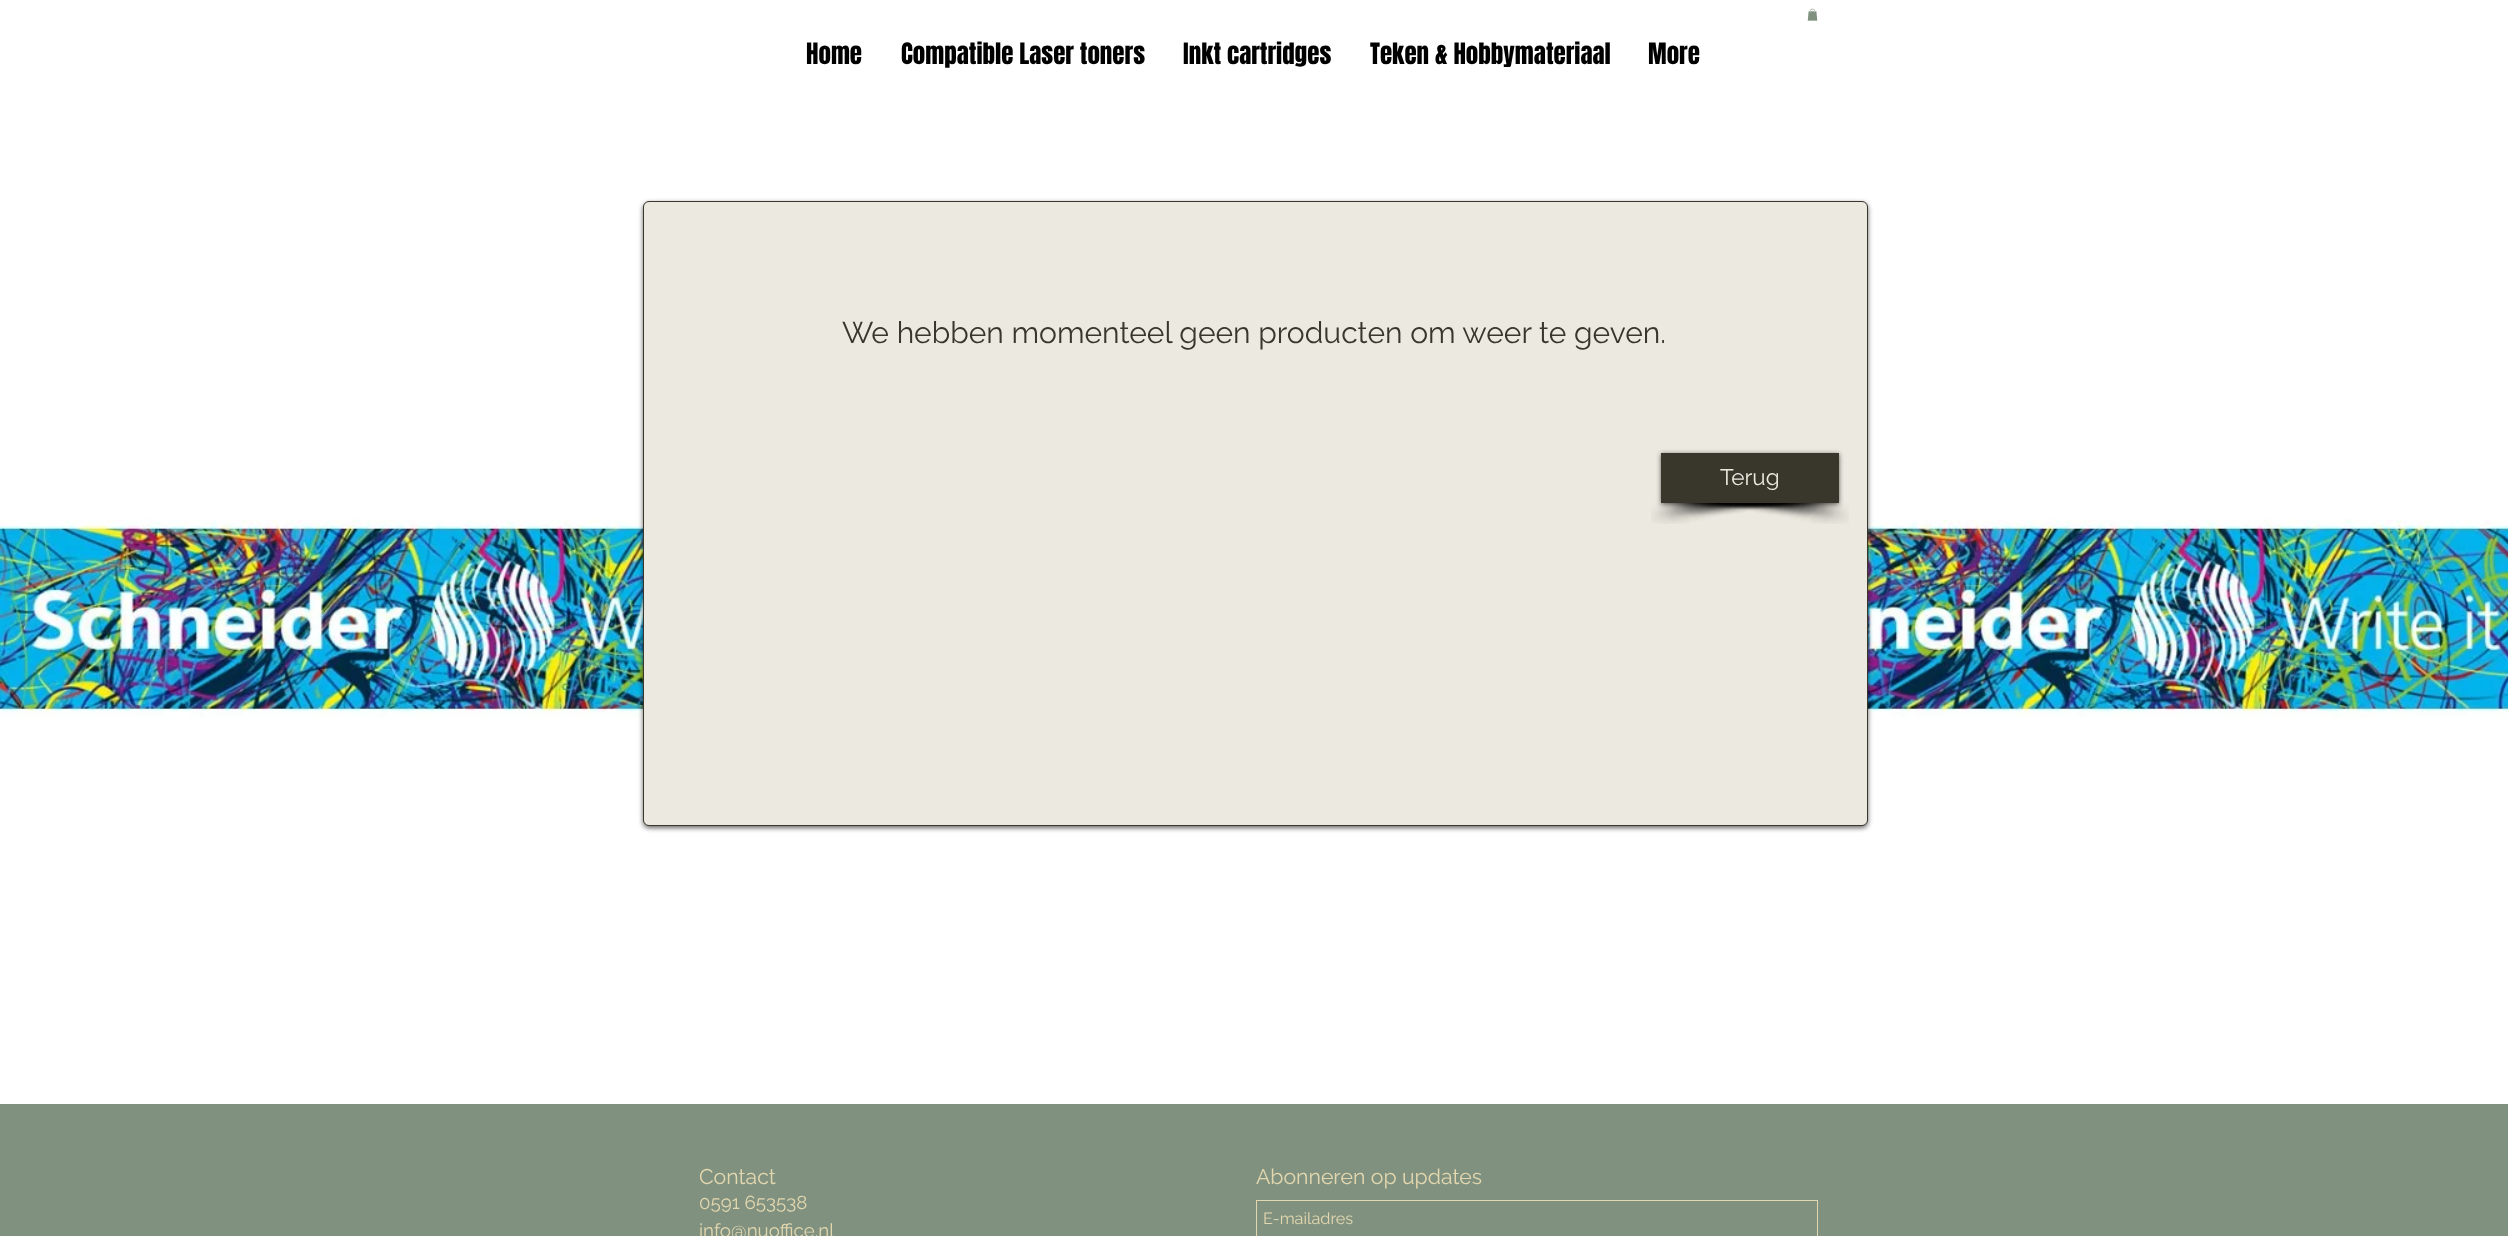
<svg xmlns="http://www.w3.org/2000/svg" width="2508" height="1236">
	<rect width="100%" height="100%" fill="#FFFFFF" />
	<image x="1807" y="8" width="11" height="13" href="assets/img1.png" />
	<g font-family="Anton" font-size="25" fill="#000000">
		<text x="806" y="64">Home</text>
		<text x="901" y="64">Compatible Laser toners</text>
		<text x="1183" y="64">Inkt cartridges</text>
		<text x="1370" y="64">Teken &amp; Hobbymateriaal</text>
		<text x="1648" y="64">More</text>
	</g>
	<image x="0" y="518" width="2508" height="200" href="assets/img4.png" />
	<rect x="643" y="203" width="1225" height="625" rx="6" fill="#000000" fill-opacity="0.6" filter="blur(2.5px)" />
	<rect x="643.5" y="201.5" width="1224" height="624" rx="5.5" fill="#ECE9E0" stroke="#39362C" />
	<text x="842" y="343" font-family="Raleway" font-size="30" fill="#39362C">We hebben momenteel geen producten om weer te geven.</text>
	<image x="1651" y="503" width="185" height="21" href="assets/img2.png" />
	<image x="1664" y="503" width="185" height="21" href="assets/img3.png" />
	<rect x="1661" y="454" width="178" height="50" fill="#000000" fill-opacity="0.6" filter="blur(2.5px)" />
	<rect x="1661" y="453" width="178" height="50" fill="#39362C" />
	<text x="1720" y="485" font-family="Raleway" font-size="22.5" fill="#ECE9E0">Terug</text>
	<rect x="0" y="1104" width="2508" height="132" fill="#80927F" />
	<text x="699" y="1184" font-family="Raleway" font-size="21.25" fill="#E3D7AF">Contact</text>
	<g font-family="Raleway" font-size="18.75" fill="#E3D7AF">
		<text x="699" y="1209">0591 653538</text>
		<text x="699" y="1237">info@nuoffice.nl</text>
	</g>
	<text x="1256" y="1184" font-family="Raleway" font-size="21.25" fill="#E3D7AF">Abonneren op updates</text>
	<rect x="1256.5" y="1200.5" width="561" height="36" fill="none" stroke="#E3D7AF" />
	<text x="1263" y="1224" font-family="Raleway" font-size="16.25" fill="#E3D7AF">E-mailadres</text>
</svg>
